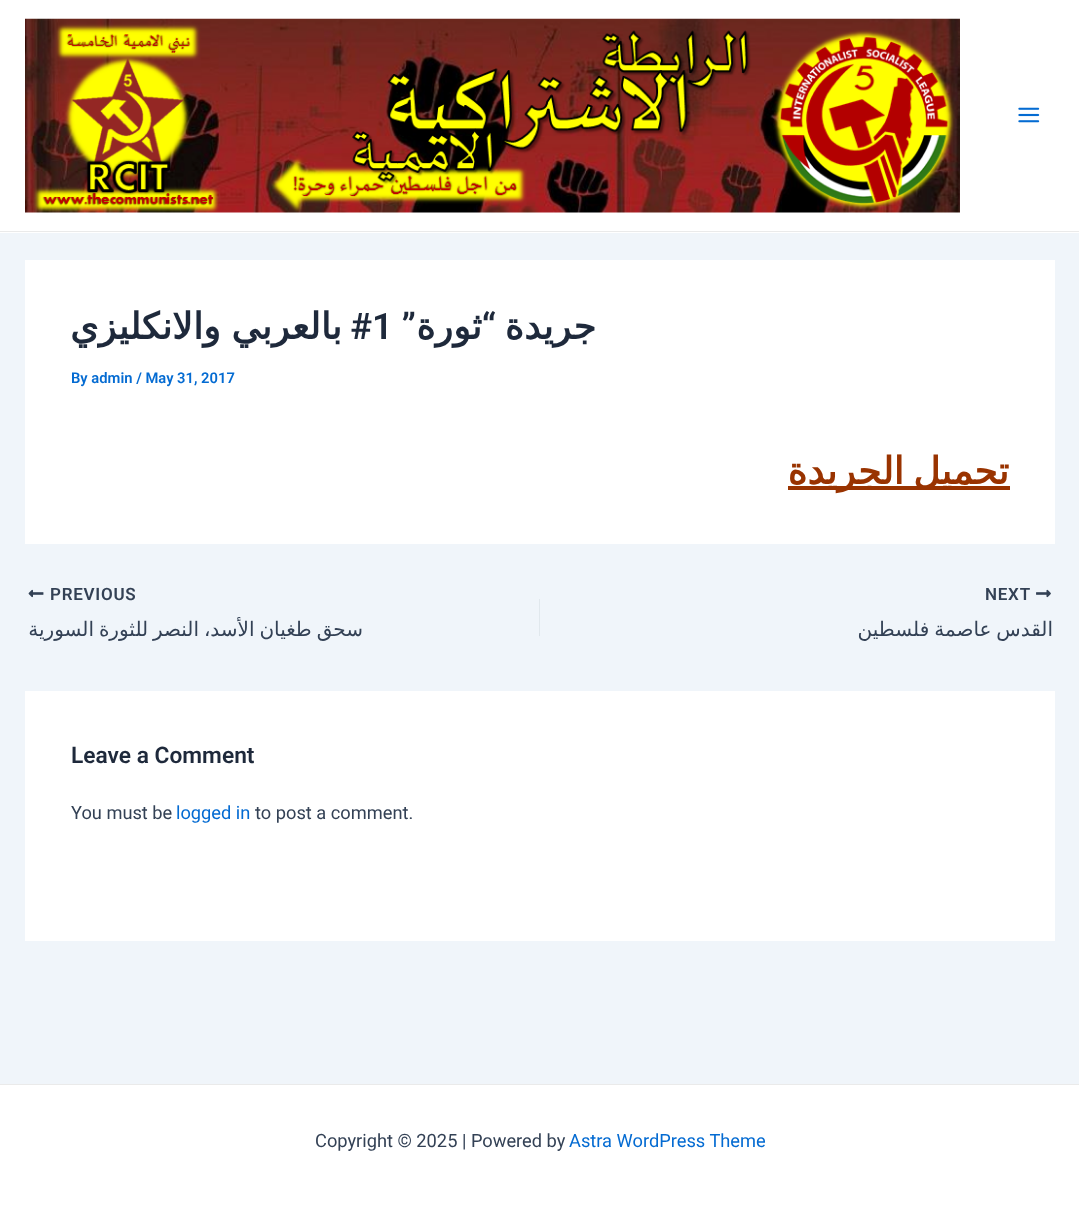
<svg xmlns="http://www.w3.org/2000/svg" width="1079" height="1209">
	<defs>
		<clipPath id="clip1"><rect x="665" y="614" width="388" height="32" /></clipPath>
	</defs>
	<rect width="100%" height="100%" fill="#F0F5FA" />
	<rect x="0" y="0" width="1079" height="233" fill="#FFFFFF" />
	<rect x="0" y="231" width="1079" height="1" fill="#EAEAEA" />
	<image x="25" y="18" width="935" height="195" href="assets/img1.png" />
	<image x="1018" y="107" width="22" height="16" href="assets/img2.png" />
	<rect x="25" y="260" width="1030" height="284" fill="#FFFFFF" />
	<text x="342" y="339" word-spacing="-1" font-family="DejaVu Sans" font-size="36.5" font-weight="700" direction="rtl" fill="#1E293B">بالعربي والانكليزي</text>
	<text x="372" y="339" font-family="Roboto" font-size="36.5" font-weight="600" direction="rtl" fill="#1E293B">#</text>
	<text x="372" y="339" font-family="Roboto" font-size="36.5" font-weight="600" fill="#1E293B">1</text>
	<text x="416" y="339" font-family="Roboto" font-size="36.5" font-weight="600" direction="rtl" fill="#1E293B">”</text>
	<text x="482" y="339" font-family="DejaVu Sans" font-size="36.5" font-weight="700" direction="rtl" fill="#1E293B">ثورة</text>
	<text x="496" y="339" font-family="Roboto" font-size="36.5" font-weight="600" direction="rtl" fill="#1E293B">“</text>
	<text x="596" y="339" font-family="DejaVu Sans" font-size="36.5" font-weight="700" direction="rtl" fill="#1E293B">جريدة</text>
	<text x="71" y="383" font-family="Roboto" font-size="14.75" font-weight="600" fill="#046BD2">By admin / May 31, 2017</text>
	<rect x="788" y="486" width="222" height="4" fill="#993300" />
	<text x="1009" y="484" word-spacing="-3" font-family="DejaVu Sans" font-size="37.5" font-weight="700" direction="rtl" fill="#993300">تحميل الجريدة</text>
	<image x="28" y="589" width="16" height="9" href="assets/img3.png" />
	<text x="50" y="600" font-family="Roboto" font-size="17" font-weight="600" letter-spacing="0.75" fill="#334155">PREVIOUS</text>
	<text x="363" y="636" word-spacing="-1.5" font-family="DejaVu Sans" font-size="20" direction="rtl" fill="#334155">ﺳﺤﻖ ﻃﻐﯿﺎن اﻷﺳﺪ، اﻟﻨﺼﺮ ﻟﻠﺜﻮرة اﻟﺴﻮرﯾﺔ</text>
	<rect x="539" y="599" width="1" height="37" fill="#E1E8ED" />
	<text x="985" y="600" font-family="Roboto" font-size="17" font-weight="600" letter-spacing="0.75" fill="#334155">NEXT</text>
	<image x="1036" y="589" width="15" height="9" href="assets/img4.png" />
	<g clip-path="url(#clip1)">
		<text x="1053" y="636" word-spacing="-1.5" font-family="DejaVu Sans" font-size="20" direction="rtl" fill="#334155">القدس عاصمة فلسطين</text>
	</g>
	<rect x="25" y="691" width="1030" height="250" fill="#FFFFFF" />
	<text x="71" y="763" font-family="Roboto" font-size="22.75" font-weight="600" fill="#1E293B">Leave a Comment</text>
	<text x="71" y="819" font-family="Roboto" font-size="18.25" fill="#334155">You must be</text>
	<text x="176" y="819" font-family="Roboto" font-size="18.25" fill="#046BD2">logged in</text>
	<text x="255" y="819" font-family="Roboto" font-size="18.25" fill="#334155">to post a comment.</text>
	<rect x="0" y="1085" width="1079" height="124" fill="#FFFFFF" />
	<rect x="0" y="1084" width="1079" height="1" fill="#EAEAEA" />
	<text x="315" y="1147" font-family="Roboto" font-size="18.25" fill="#334155">Copyright © 2025 | Powered by</text>
	<text x="569" y="1147" font-family="Roboto" font-size="18.25" fill="#046BD2">Astra WordPress Theme</text>
</svg>
